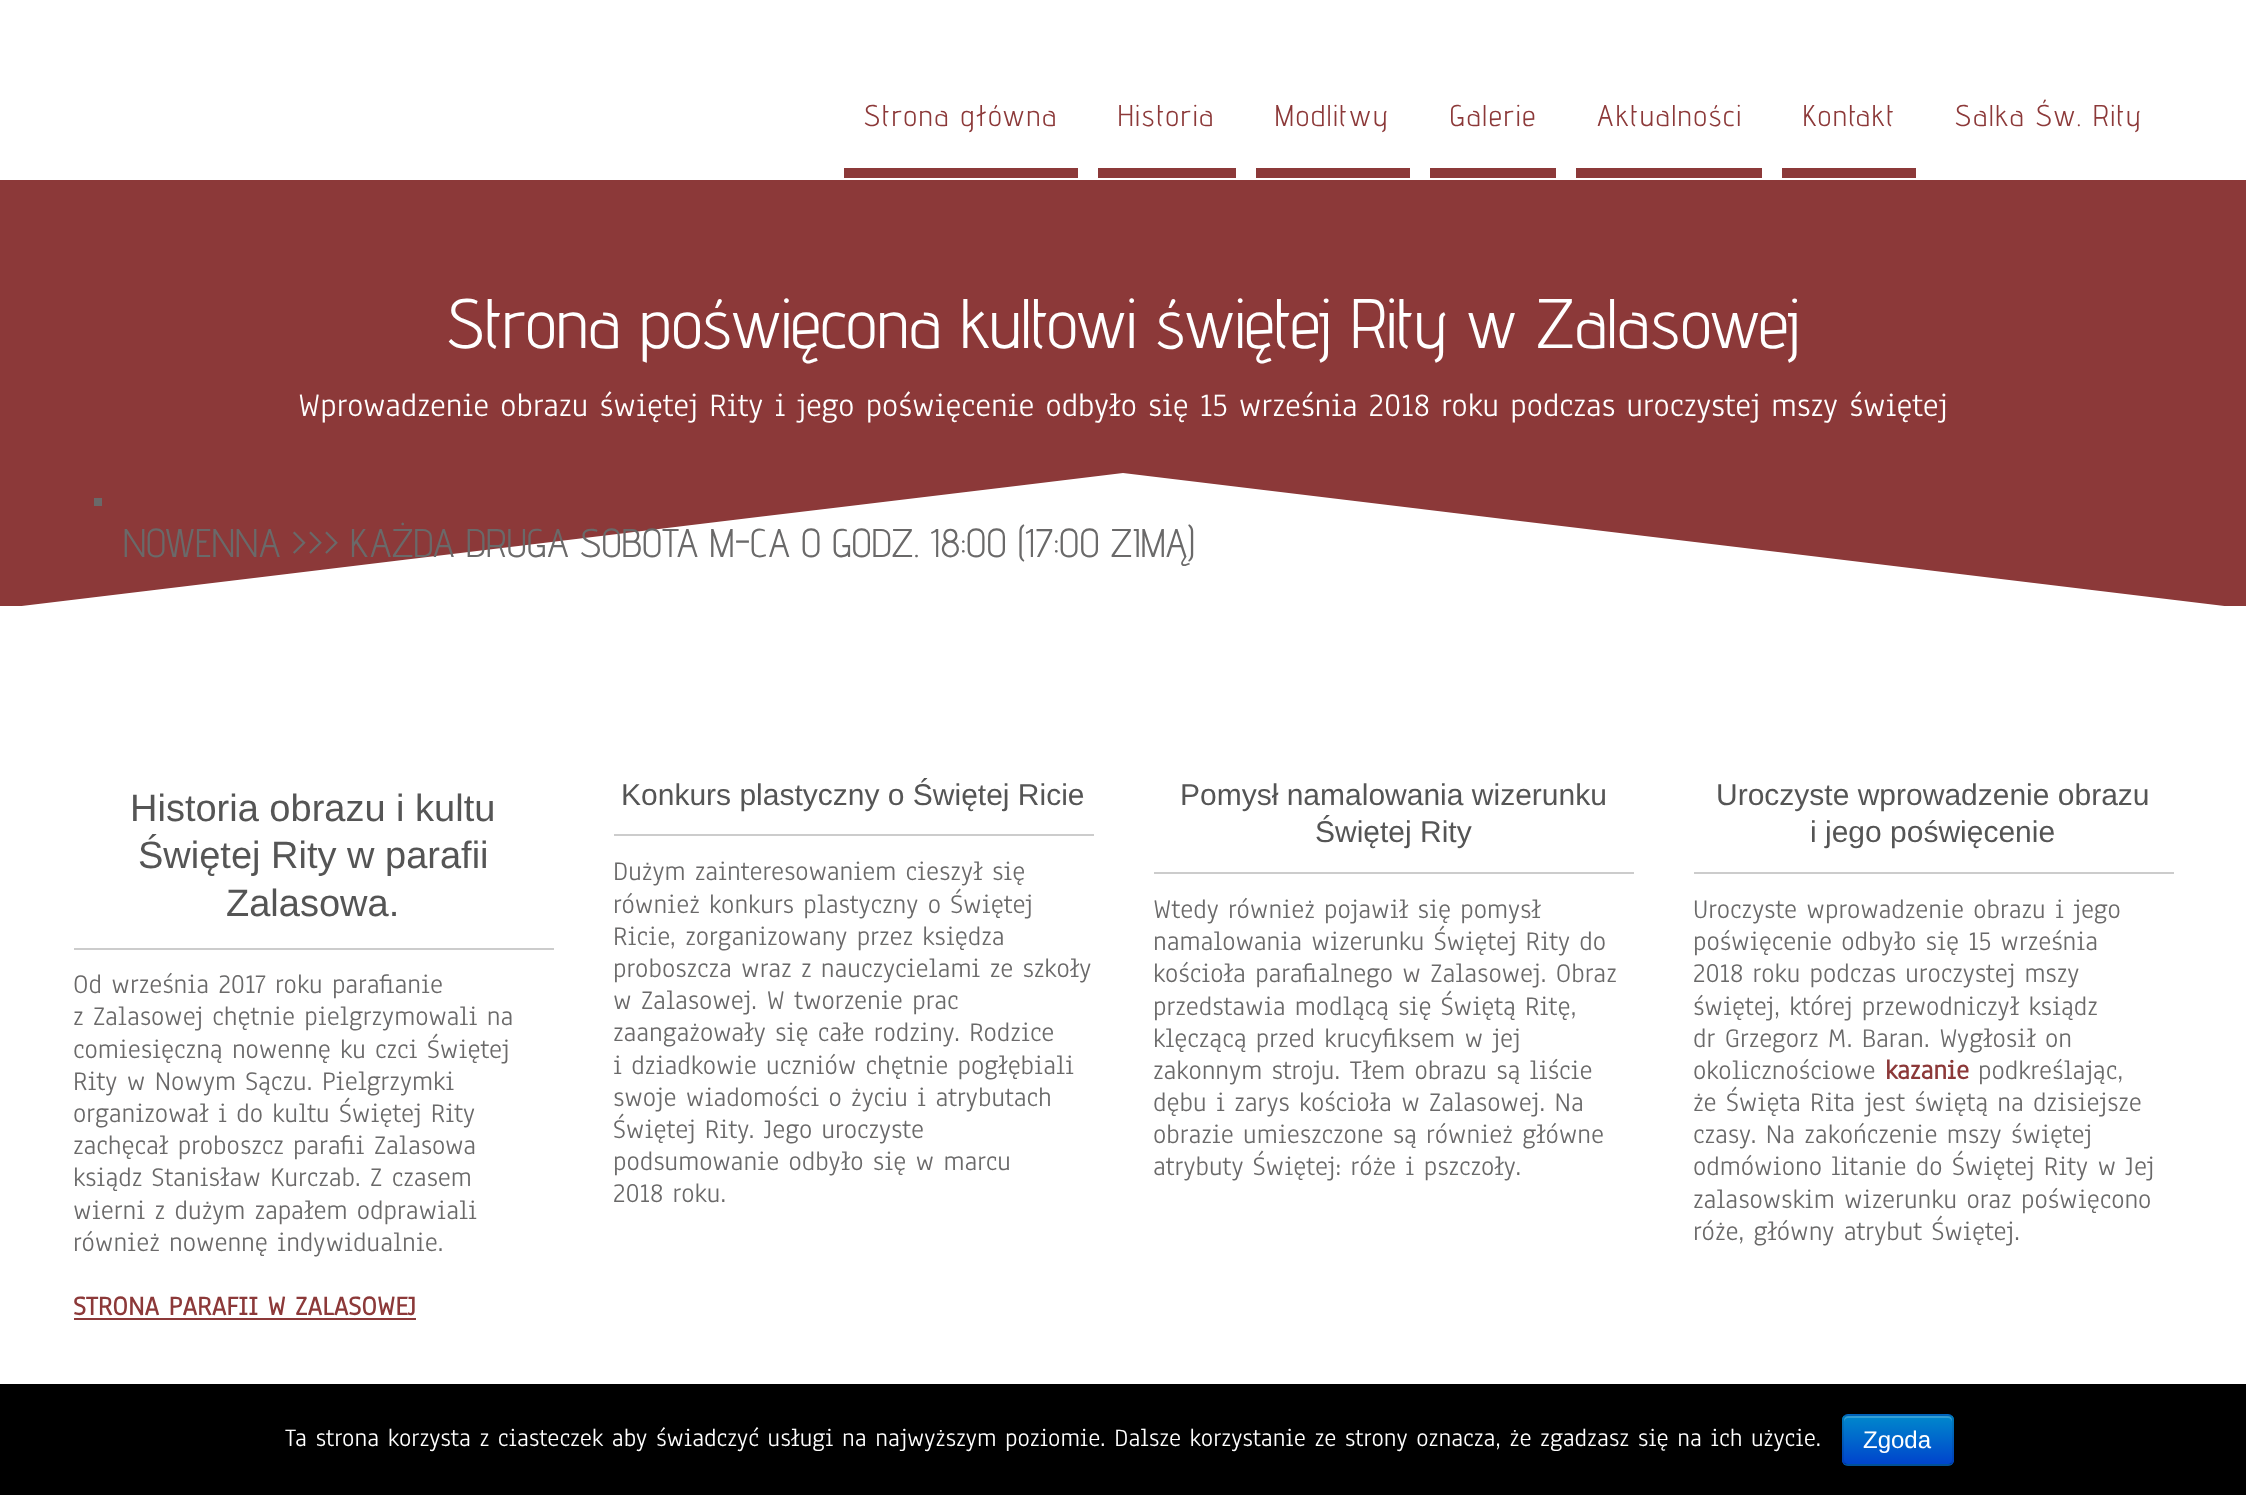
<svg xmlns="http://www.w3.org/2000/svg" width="2246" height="1495">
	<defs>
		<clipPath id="clip1"><rect x="1842" y="1414" width="112" height="52" rx="6" /></clipPath>
		<linearGradient id="g1" gradientUnits="userSpaceOnUse" x1="1898" y1="1416" x2="1898" y2="1464"><stop offset="0" stop-color="#0088CC" /><stop offset="1" stop-color="#0044CC" /></linearGradient>
	</defs>
	<rect width="100%" height="100%" fill="#FFFFFF" />
	<rect x="844" y="168" width="234" height="10" fill="#8C3939" />
	<text x="864" y="126" font-family="Advent Pro" font-size="30" letter-spacing="2" fill="#8C3939">Strona główna</text>
	<rect x="1098" y="168" width="138" height="10" fill="#8C3939" />
	<text x="1118" y="126" font-family="Advent Pro" font-size="30" letter-spacing="2" fill="#8C3939">Historia</text>
	<rect x="1256" y="168" width="154" height="10" fill="#8C3939" />
	<text x="1275" y="126" font-family="Advent Pro" font-size="30" letter-spacing="2" fill="#8C3939">Modlitwy</text>
	<rect x="1430" y="168" width="126" height="10" fill="#8C3939" />
	<text x="1450" y="126" font-family="Advent Pro" font-size="30" letter-spacing="2" fill="#8C3939">Galerie</text>
	<rect x="1576" y="168" width="186" height="10" fill="#8C3939" />
	<text x="1597" y="126" font-family="Advent Pro" font-size="30" letter-spacing="2" fill="#8C3939">Aktualności</text>
	<rect x="1782" y="168" width="134" height="10" fill="#8C3939" />
	<g font-family="Advent Pro" font-size="30" letter-spacing="2" fill="#8C3939">
		<text x="1803" y="126">Kontakt</text>
		<text x="1955" y="126">Salka Św. Rity</text>
	</g>
	<rect x="0" y="180" width="2246" height="426" fill="#8C3939" />
	<text x="447" y="348" font-family="Advent Pro" font-size="70" fill="#FFFFFF">Strona poświęcona kultowi świętej Rity w Zalasowej</text>
	<text x="298" y="416" font-family="Anaheim" font-size="34" fill="#FFFFFF">Wprowadzenie obrazu świętej Rity i jego poświęcenie odbyło się 15 września 2018 roku podczas uroczystej mszy świętej</text>
	<path d="M1123 473L2241 608H5Z" fill="#FFFFFF" />
	<rect x="94" y="498" width="8" height="8" fill="#6A6969" />
	<text x="123" y="557" font-family="Advent Pro" font-size="40" fill="#6A6969">NOWENNA &gt;&gt;&gt; KAŻDA DRUGA SOBOTA M-CA O GODZ. 18:00 (17:00 ZIMĄ)</text>
	<g font-family="Liberation Sans" font-size="38" fill="#555555">
		<text x="130" y="821">Historia obrazu i kultu</text>
		<text x="138" y="868">Świętej Rity w parafii</text>
		<text x="226" y="916">Zalasowa.</text>
	</g>
	<rect x="74" y="948" width="480" height="2" fill="#CCCCCC" />
	<g font-family="Anaheim" font-size="28" fill="#6A6969">
		<text x="73" y="993">Od września 2017 roku parafianie</text>
		<text x="73" y="1025">z Zalasowej chętnie pielgrzymowali na</text>
		<text x="73" y="1058">comiesięczną nowennę ku czci Świętej</text>
		<text x="73" y="1090">Rity w Nowym Sączu. Pielgrzymki</text>
		<text x="73" y="1122">organizował i do kultu Świętej Rity</text>
		<text x="73" y="1154">zachęcał proboszcz parafii Zalasowa</text>
		<text x="73" y="1186">ksiądz Stanisław Kurczab. Z czasem</text>
		<text x="73" y="1219">wierni z dużym zapałem odprawiali</text>
		<text x="73" y="1251">również nowennę indywidualnie.</text>
	</g>
	<text x="73" y="1315" font-family="Anaheim" font-size="28" font-weight="700" fill="#8C3939">STRONA PARAFII W ZALASOWEJ</text>
	<rect x="74" y="1318" width="342" height="2" fill="#8C3939" />
	<text x="621" y="805" font-family="Liberation Sans" font-size="30" fill="#555555">Konkurs plastyczny o Świętej Ricie</text>
	<rect x="614" y="834" width="480" height="2" fill="#CCCCCC" />
	<g font-family="Anaheim" font-size="28" fill="#6A6969">
		<text x="613" y="880">Dużym zainteresowaniem cieszył się</text>
		<text x="613" y="913">również konkurs plastyczny o Świętej</text>
		<text x="613" y="945">Ricie, zorganizowany przez księdza</text>
		<text x="613" y="977">proboszcza wraz z nauczycielami ze szkoły</text>
		<text x="613" y="1009">w Zalasowej. W tworzenie prac</text>
		<text x="613" y="1041">zaangażowały się całe rodziny. Rodzice</text>
		<text x="613" y="1074">i dziadkowie uczniów chętnie pogłębiali</text>
		<text x="613" y="1106">swoje wiadomości o życiu i atrybutach</text>
		<text x="613" y="1138">Świętej Rity. Jego uroczyste</text>
		<text x="613" y="1170">podsumowanie odbyło się w marcu</text>
		<text x="613" y="1202">2018 roku.</text>
	</g>
	<g font-family="Liberation Sans" font-size="30" fill="#555555">
		<text x="1180" y="805">Pomysł namalowania wizerunku</text>
		<text x="1315" y="842">Świętej Rity</text>
	</g>
	<rect x="1154" y="872" width="480" height="2" fill="#CCCCCC" />
	<g font-family="Anaheim" font-size="28" fill="#6A6969">
		<text x="1153" y="918">Wtedy również pojawił się pomysł</text>
		<text x="1153" y="950">namalowania wizerunku Świętej Rity do</text>
		<text x="1153" y="982">kościoła parafialnego w Zalasowej. Obraz</text>
		<text x="1153" y="1015">przedstawia modlącą się Świętą Ritę,</text>
		<text x="1153" y="1047">klęczącą przed krucyfiksem w jej</text>
		<text x="1153" y="1079">zakonnym stroju. Tłem obrazu są liście</text>
		<text x="1153" y="1111">dębu i zarys kościoła w Zalasowej. Na</text>
		<text x="1153" y="1143">obrazie umieszczone są również główne</text>
		<text x="1153" y="1175">atrybuty Świętej: róże i pszczoły.</text>
	</g>
	<g font-family="Liberation Sans" font-size="30" fill="#555555">
		<text x="1716" y="805">Uroczyste wprowadzenie obrazu</text>
		<text x="1810" y="842">i jego poświęcenie</text>
	</g>
	<rect x="1694" y="872" width="480" height="2" fill="#CCCCCC" />
	<g font-family="Anaheim" font-size="28" fill="#6A6969">
		<text x="1693" y="918">Uroczyste wprowadzenie obrazu i jego</text>
		<text x="1693" y="950">poświęcenie odbyło się 15 września</text>
		<text x="1693" y="982">2018 roku podczas uroczystej mszy</text>
		<text x="1693" y="1015">świętej, której przewodniczył ksiądz</text>
		<text x="1693" y="1047">dr Grzegorz M. Baran. Wygłosił on</text>
		<text x="1693" y="1079">okolicznościowe</text>
	</g>
	<text x="1885" y="1079" font-family="Anaheim" font-size="28" font-weight="700" fill="#8C3939">kazanie</text>
	<g font-family="Anaheim" font-size="28" fill="#6A6969">
		<text x="1978" y="1079">podkreślając,</text>
		<text x="1693" y="1111">że Święta Rita jest świętą na dzisiejsze</text>
		<text x="1693" y="1143">czasy. Na zakończenie mszy świętej</text>
		<text x="1693" y="1175">odmówiono litanie do Świętej Rity w Jej</text>
		<text x="1693" y="1208">zalasowskim wizerunku oraz poświęcono</text>
		<text x="1693" y="1240">róże, główny atrybut Świętej.</text>
	</g>
	<rect x="0" y="1384" width="2246" height="111" fill="#000000" />
	<text x="285" y="1446" font-family="Anaheim" font-size="26" fill="#FFFFFF">Ta strona korzysta z ciasteczek aby świadczyć usługi na najwyższym poziomie. Dalsze korzystanie ze strony oznacza, że zgadzasz się na ich użycie.</text>
	<rect x="1842" y="1414" width="112" height="52" rx="6" fill="#006DCC" />
	<g clip-path="url(#clip1)">
		<rect x="1842" y="1416" width="112" height="48" fill="url(#g1)" />
	</g>
	<path d="M1848 1418H1948C1950 1418 1952 1420 1952 1422V1420C1952 1418 1950 1416 1948 1416H1848C1846 1416 1844 1418 1844 1420V1422C1844 1420 1846 1418 1848 1418Z" fill="#FFFFFF" fill-opacity="0.2" />
	<path d="M1951.5 1463.5C1950.5 1464.5 1949.5 1465 1948 1465H1848C1846.5 1465 1845.5 1464.5 1844.5 1463.5" fill="none" stroke="#000000" stroke-opacity="0.25" stroke-width="2" />
	<path d="M1844.5 1463.5C1842 1461 1843 1456 1843 1453.5V1440C1843 1412.5 1838 1415 1864.5 1415H1931.5C1958 1415 1953 1412.5 1953 1440V1453.5C1953 1456 1954 1461 1951.5 1463.5" fill="none" stroke="#000000" stroke-opacity="0.1" stroke-width="2" />
	<text x="1863" y="1448" font-family="Liberation Sans" font-size="24" fill="#FFFFFF">Zgoda</text>
</svg>
